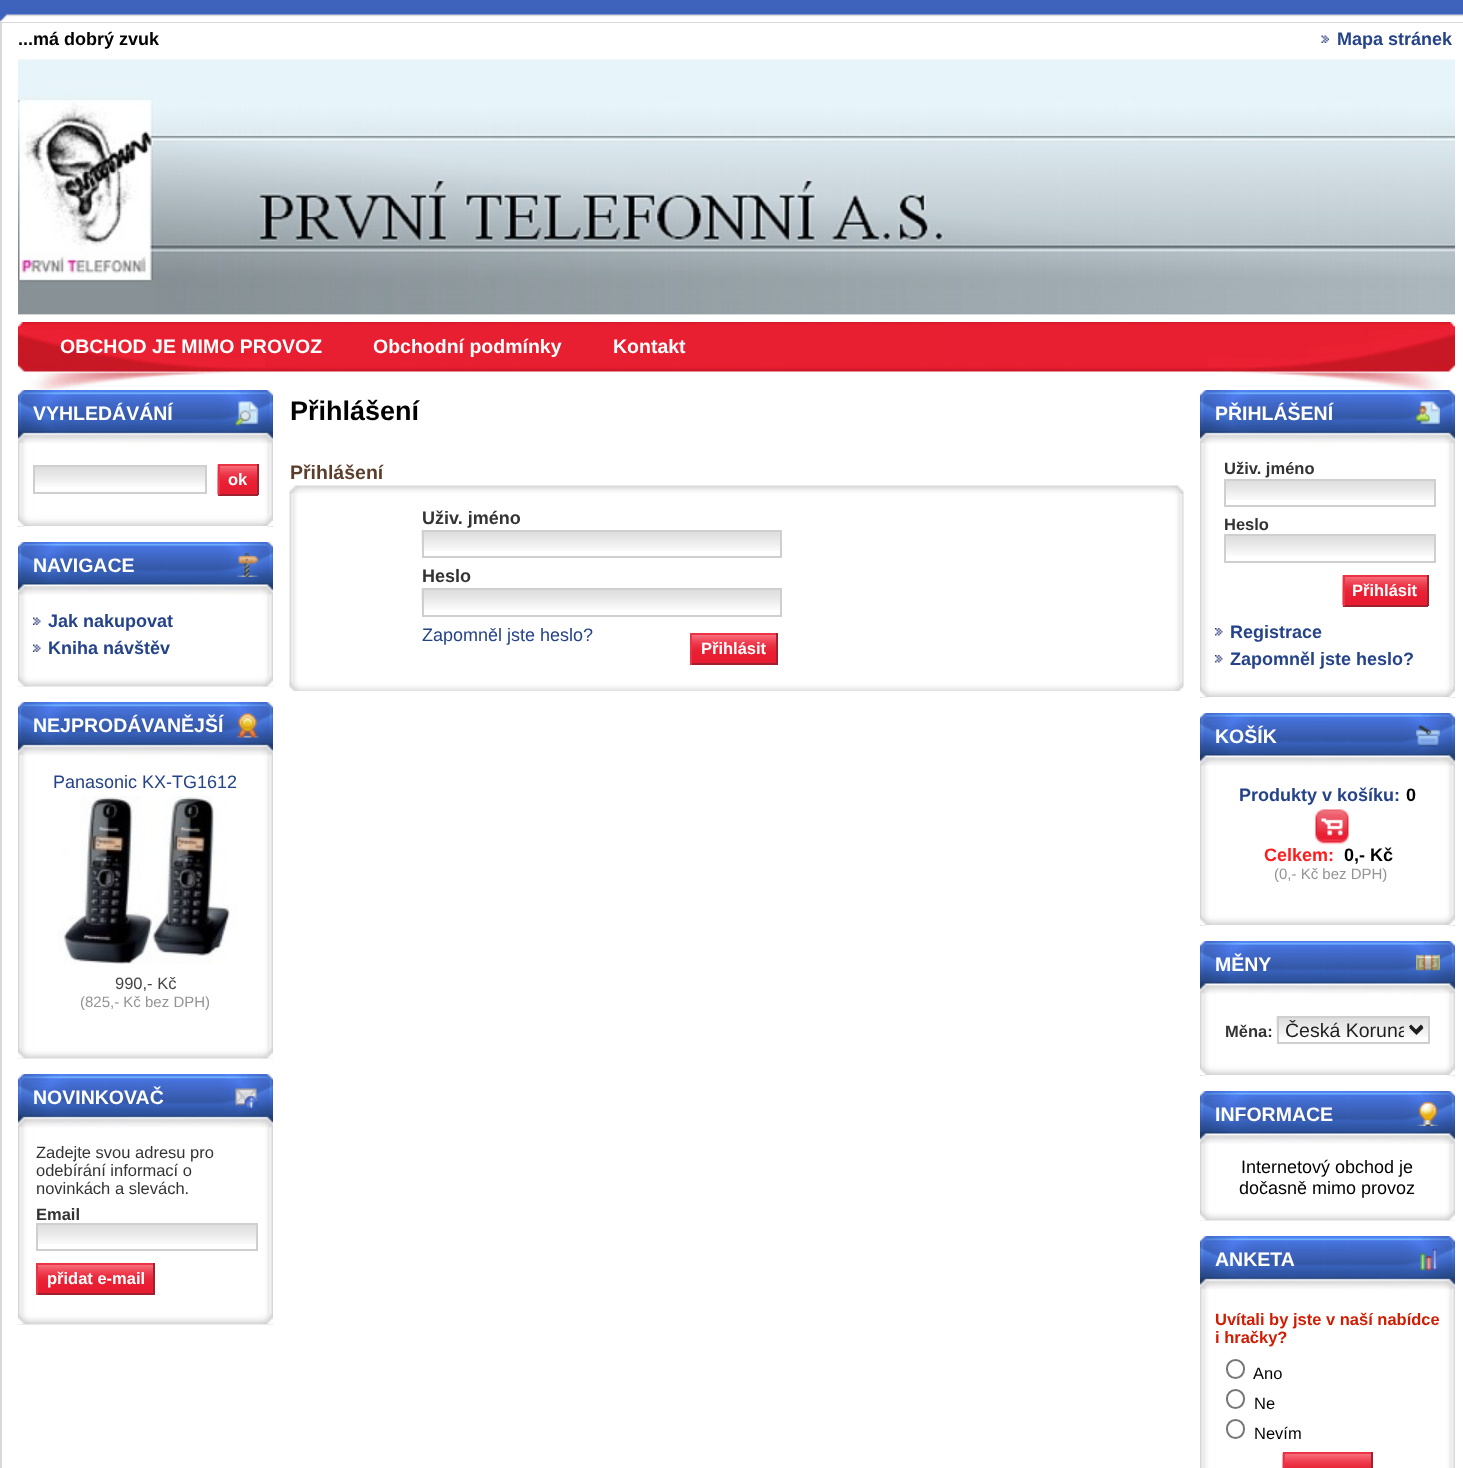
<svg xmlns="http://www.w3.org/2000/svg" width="1463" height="1468">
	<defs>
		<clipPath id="clip1"><rect x="1284" y="1017" width="120" height="26" /></clipPath>
	</defs>
	<rect width="100%" height="100%" fill="#FFFFFF" />
	<image x="0" y="0" width="1463" height="21" href="assets/img1.png" />
	<rect x="1" y="22" width="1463" height="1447" fill="none" stroke="#D7D9DC" stroke-width="2" />
	<image x="0" y="14" width="1463" height="8" href="assets/img2.png" />
	<text x="18" y="45" font-family="Liberation Sans" font-size="18" font-weight="700" fill="#000000">...má dobrý zvuk</text>
	<image x="1321" y="35" width="8" height="8" href="assets/img3.png" />
	<text x="1337" y="45" font-family="Liberation Sans" font-size="18" font-weight="700" fill="#254388">Mapa stránek</text>
	<rect x="18" y="314" width="1437" height="1" fill="#ECECEC" />
	<image x="18" y="59" width="1437" height="256" href="assets/img4.png" />
	<image x="18" y="322" width="1437" height="68" href="assets/img5.png" />
	<g font-family="Liberation Sans" font-size="19.5" font-weight="700" fill="#FEFEFD">
		<text x="60" y="353">OBCHOD JE MIMO PROVOZ</text>
		<text x="373" y="353">Obchodní podmínky</text>
		<text x="613" y="353">Kontakt</text>
	</g>
	<rect x="18" y="1324" width="255" height="1" fill="#ECECEC" />
	<image x="18" y="443" width="255" height="871" href="assets/img6.png" />
	<image x="18" y="390" width="255" height="54" href="assets/img7.png" />
	<image x="235" y="401" width="24" height="25" href="assets/img8.png" />
	<text x="33" y="420" font-family="Liberation Sans" font-size="19.5" font-weight="700" fill="#FEFEFD">VYHLEDÁVÁNÍ</text>
	<image x="35" y="467" width="170" height="20" href="assets/img9.png" />
	<rect x="34" y="466" width="172" height="27" fill="none" stroke="#CFCFCF" stroke-width="2" />
	<image x="217" y="464" width="40" height="31" href="assets/img10.png" />
	<rect x="218" y="464" width="40" height="2" fill="#EC3245" />
	<rect x="257" y="464" width="2" height="31" fill="#9D212E" />
	<rect x="218" y="494" width="40" height="2" fill="#9D212E" />
	<rect x="218" y="464" width="2" height="31" fill="#EC3245" />
	<text x="228" y="485" font-family="Liberation Sans" font-size="16.5" font-weight="700" fill="#FEFEFD">ok</text>
	<image x="18" y="515" width="255" height="11" href="assets/img11.png" />
	<image x="18" y="542" width="255" height="53" href="assets/img12.png" />
	<rect x="18" y="527" width="255" height="15" fill="#FFFFFF" />
	<image x="236" y="553" width="23" height="24" href="assets/img13.png" />
	<text x="33" y="572" font-family="Liberation Sans" font-size="19.5" font-weight="700" fill="#FEFEFD">NAVIGACE</text>
	<image x="33" y="617" width="8" height="8" href="assets/img14.png" />
	<text x="48" y="627" font-family="Liberation Sans" font-size="18" font-weight="700" fill="#254388">Jak nakupovat</text>
	<image x="33" y="644" width="8" height="8" href="assets/img14.png" />
	<text x="48" y="654" font-family="Liberation Sans" font-size="18" font-weight="700" fill="#254388">Kniha návštěv</text>
	<image x="18" y="676" width="255" height="11" href="assets/img15.png" />
	<image x="18" y="702" width="255" height="54" href="assets/img7.png" />
	<rect x="18" y="687" width="255" height="15" fill="#FFFFFF" />
	<image x="237" y="713" width="23" height="25" href="assets/img16.png" />
	<text x="33" y="732" font-family="Liberation Sans" font-size="19.5" font-weight="700" fill="#FEFEFD">NEJPRODÁVANĚJŠÍ</text>
	<text x="53" y="788" font-family="Liberation Sans" font-size="18" fill="#254388">Panasonic KX-TG1612</text>
	<image x="58" y="796" width="179" height="168" href="assets/img17.png" />
	<text x="115" y="989" font-family="Liberation Sans" font-size="16.5" fill="#464646">990,- Kč</text>
	<text x="80" y="1007" font-family="Liberation Sans" font-size="15" fill="#949494">(825,- Kč bez DPH)</text>
	<image x="18" y="1048" width="255" height="11" href="assets/img15.png" />
	<image x="18" y="1074" width="255" height="54" href="assets/img7.png" />
	<rect x="18" y="1059" width="255" height="15" fill="#FFFFFF" />
	<image x="235" y="1088" width="23" height="22" href="assets/img18.png" />
	<text x="33" y="1104" font-family="Liberation Sans" font-size="19.5" font-weight="700" fill="#FEFEFD">NOVINKOVAČ</text>
	<g font-family="Liberation Sans" font-size="16.5" fill="#333333">
		<text x="36" y="1158">Zadejte svou adresu pro</text>
		<text x="36" y="1176">odebírání informací o</text>
		<text x="36" y="1194">novinkách a slevách.</text>
	</g>
	<text x="36" y="1220" font-family="Liberation Sans" font-size="16.5" font-weight="700" fill="#333333">Email</text>
	<image x="38" y="1225" width="218" height="19" href="assets/img19.png" />
	<rect x="37" y="1224" width="220" height="26" fill="none" stroke="#CFCFCF" stroke-width="2" />
	<image x="38" y="1265" width="115" height="28" href="assets/img20.png" />
	<rect x="36" y="1263" width="119" height="2" fill="#EC3245" />
	<rect x="153" y="1263" width="2" height="32" fill="#9D212E" />
	<rect x="36" y="1293" width="119" height="2" fill="#9D212E" />
	<rect x="36" y="1263" width="2" height="32" fill="#EC3245" />
	<text x="47" y="1284" font-family="Liberation Sans" font-size="16.5" font-weight="700" fill="#FEFEFD">přidat e-mail</text>
	<image x="18" y="1313" width="255" height="11" href="assets/img11.png" />
	<text x="290" y="420" font-family="Liberation Sans" font-size="27" font-weight="700" fill="#000000">Přihlášení</text>
	<text x="290" y="479" font-family="Liberation Sans" font-size="19.5" font-weight="700" fill="#5C3E2C">Přihlášení</text>
	<image x="289" y="485" width="895" height="10" href="assets/img21.png" />
	<image x="289" y="494" width="895" height="188" href="assets/img22.png" />
	<text x="422" y="524" font-family="Liberation Sans" font-size="18" font-weight="700" fill="#333333">Uživ. jméno</text>
	<image x="421" y="530" width="359" height="21" href="assets/img23.png" />
	<rect x="423" y="531" width="358" height="26" fill="none" stroke="#CFCFCF" stroke-width="2" />
	<text x="422" y="582" font-family="Liberation Sans" font-size="18" font-weight="700" fill="#333333">Heslo</text>
	<image x="421" y="589" width="359" height="21" href="assets/img24.png" />
	<rect x="423" y="589" width="358" height="27" fill="none" stroke="#CFCFCF" stroke-width="2" />
	<text x="422" y="641" font-family="Liberation Sans" font-size="18" fill="#254388">Zapomněl jste heslo?</text>
	<image x="692" y="635" width="84" height="28" href="assets/img25.png" />
	<rect x="690" y="633" width="87" height="2" fill="#EC3245" />
	<rect x="776" y="633" width="2" height="32" fill="#9D212E" />
	<rect x="690" y="663" width="87" height="2" fill="#9D212E" />
	<rect x="690" y="633" width="2" height="32" fill="#EC3245" />
	<text x="701" y="654" font-family="Liberation Sans" font-size="16.5" font-weight="700" fill="#FEFEFD">Přihlásit</text>
	<image x="289" y="682" width="895" height="9" href="assets/img26.png" />
	<image x="1200" y="443" width="255" height="1025" href="assets/img27.png" />
	<image x="1200" y="390" width="255" height="54" href="assets/img28.png" />
	<image x="1416" y="401" width="24" height="25" href="assets/img29.png" />
	<text x="1215" y="420" font-family="Liberation Sans" font-size="19.5" font-weight="700" fill="#FEFEFD">PŘIHLÁŠENÍ</text>
	<text x="1224" y="474" font-family="Liberation Sans" font-size="16.5" font-weight="700" fill="#333333">Uživ. jméno</text>
	<image x="1226" y="481" width="208" height="19" href="assets/img30.png" />
	<rect x="1225" y="480" width="210" height="26" fill="none" stroke="#CFCFCF" stroke-width="2" />
	<text x="1224" y="530" font-family="Liberation Sans" font-size="16.5" font-weight="700" fill="#333333">Heslo</text>
	<image x="1226" y="536" width="208" height="20" href="assets/img31.png" />
	<rect x="1225" y="535" width="210" height="27" fill="none" stroke="#CFCFCF" stroke-width="2" />
	<image x="1342" y="575" width="85" height="31" href="assets/img32.png" />
	<rect x="1343" y="575" width="85" height="2" fill="#EC3245" />
	<rect x="1427" y="575" width="2" height="31" fill="#9D212E" />
	<rect x="1343" y="605" width="85" height="2" fill="#9D212E" />
	<rect x="1343" y="575" width="2" height="31" fill="#EC3245" />
	<text x="1352" y="596" font-family="Liberation Sans" font-size="16.5" font-weight="700" fill="#FEFEFD">Přihlásit</text>
	<image x="1215" y="628" width="8" height="8" href="assets/img33.png" />
	<text x="1230" y="638" font-family="Liberation Sans" font-size="18" font-weight="700" fill="#254388">Registrace</text>
	<image x="1215" y="655" width="8" height="8" href="assets/img33.png" />
	<text x="1230" y="665" font-family="Liberation Sans" font-size="18" font-weight="700" fill="#254388">Zapomněl jste heslo?</text>
	<image x="1200" y="686" width="255" height="11" href="assets/img34.png" />
	<image x="1200" y="713" width="255" height="53" href="assets/img35.png" />
	<rect x="1200" y="698" width="255" height="15" fill="#FFFFFF" />
	<image x="1416" y="725" width="24" height="22" href="assets/img36.png" />
	<text x="1215" y="743" font-family="Liberation Sans" font-size="19.5" font-weight="700" fill="#FEFEFD">KOŠÍK</text>
	<text x="1239" y="801" font-family="Liberation Sans" font-size="18" font-weight="700" fill="#254388">Produkty v košíku:</text>
	<text x="1406" y="801" font-family="Liberation Sans" font-size="18" font-weight="700" fill="#000000">0</text>
	<image x="1315" y="809" width="34" height="36" href="assets/img37.png" />
	<text x="1264" y="861" font-family="Liberation Sans" font-size="18" font-weight="700" fill="#FF1C1C">Celkem:</text>
	<text x="1344" y="861" font-family="Liberation Sans" font-size="18" font-weight="700" fill="#000000">0,- Kč</text>
	<text x="1274" y="879" font-family="Liberation Sans" font-size="15" fill="#949494">(0,- Kč bez DPH)</text>
	<image x="1200" y="914" width="255" height="11" href="assets/img34.png" />
	<image x="1200" y="941" width="255" height="53" href="assets/img35.png" />
	<rect x="1200" y="926" width="255" height="15" fill="#FFFFFF" />
	<image x="1416" y="954" width="24" height="17" href="assets/img38.png" />
	<text x="1215" y="971" font-family="Liberation Sans" font-size="19.5" font-weight="700" fill="#FEFEFD">MĚNY</text>
	<text x="1225" y="1037" font-family="Liberation Sans" font-size="16.5" font-weight="700" fill="#333333">Měna:</text>
	<image x="1276" y="1016" width="152" height="21" href="assets/img39.png" />
	<rect x="1278" y="1017" width="151" height="26" fill="none" stroke="#CFCFCF" stroke-width="2" />
	<path d="M1410.5 1027L1416.5 1033L1422.5 1027" fill="none" stroke="#1F1F1F" stroke-width="3" />
	<g clip-path="url(#clip1)">
		<text x="1285" y="1037" font-family="Liberation Sans" font-size="19.5" fill="#1F1F1F">Česká Koruna</text>
	</g>
	<image x="1200" y="1064" width="255" height="11" href="assets/img34.png" />
	<image x="1200" y="1091" width="255" height="53" href="assets/img35.png" />
	<rect x="1200" y="1076" width="255" height="15" fill="#FFFFFF" />
	<image x="1416" y="1102" width="23" height="24" href="assets/img40.png" />
	<text x="1215" y="1121" font-family="Liberation Sans" font-size="19.5" font-weight="700" fill="#FEFEFD">INFORMACE</text>
	<g font-family="Liberation Sans" font-size="18" fill="#000000">
		<text x="1241" y="1173">Internetový obchod je</text>
		<text x="1239" y="1194">dočasně mimo provoz</text>
	</g>
	<image x="1200" y="1210" width="255" height="11" href="assets/img41.png" />
	<image x="1200" y="1236" width="255" height="54" href="assets/img28.png" />
	<rect x="1200" y="1221" width="255" height="15" fill="#FFFFFF" />
	<image x="1420" y="1248" width="18" height="23" href="assets/img42.png" />
	<text x="1215" y="1266" font-family="Liberation Sans" font-size="19.5" font-weight="700" fill="#FEFEFD">ANKETA</text>
	<g font-family="Liberation Sans" font-size="16.5" font-weight="700" fill="#D01C02">
		<text x="1215" y="1325">Uvítali by jste v naší nabídce</text>
		<text x="1215" y="1343">i hračky?</text>
	</g>
	<rect x="1227" y="1360" width="17" height="18" rx="8.5" fill="none" stroke="#767676" stroke-width="2" />
	<text x="1253" y="1379" font-family="Liberation Sans" font-size="16.5" fill="#000000">Ano</text>
	<rect x="1227" y="1390" width="17" height="18" rx="8.5" fill="none" stroke="#767676" stroke-width="2" />
	<text x="1254" y="1409" font-family="Liberation Sans" font-size="16.5" fill="#000000">Ne</text>
	<rect x="1227" y="1420" width="17" height="18" rx="8.5" fill="none" stroke="#767676" stroke-width="2" />
	<text x="1254" y="1439" font-family="Liberation Sans" font-size="16.5" fill="#000000">Nevím</text>
	<image x="1282" y="1453" width="89" height="15" href="assets/img43.png" />
	<rect x="1283" y="1452" width="90" height="2" fill="#EC3245" />
	<rect x="1371" y="1452" width="2" height="16" fill="#9D212E" />
	<rect x="1283" y="1452" width="2" height="16" fill="#EC3245" />
</svg>
